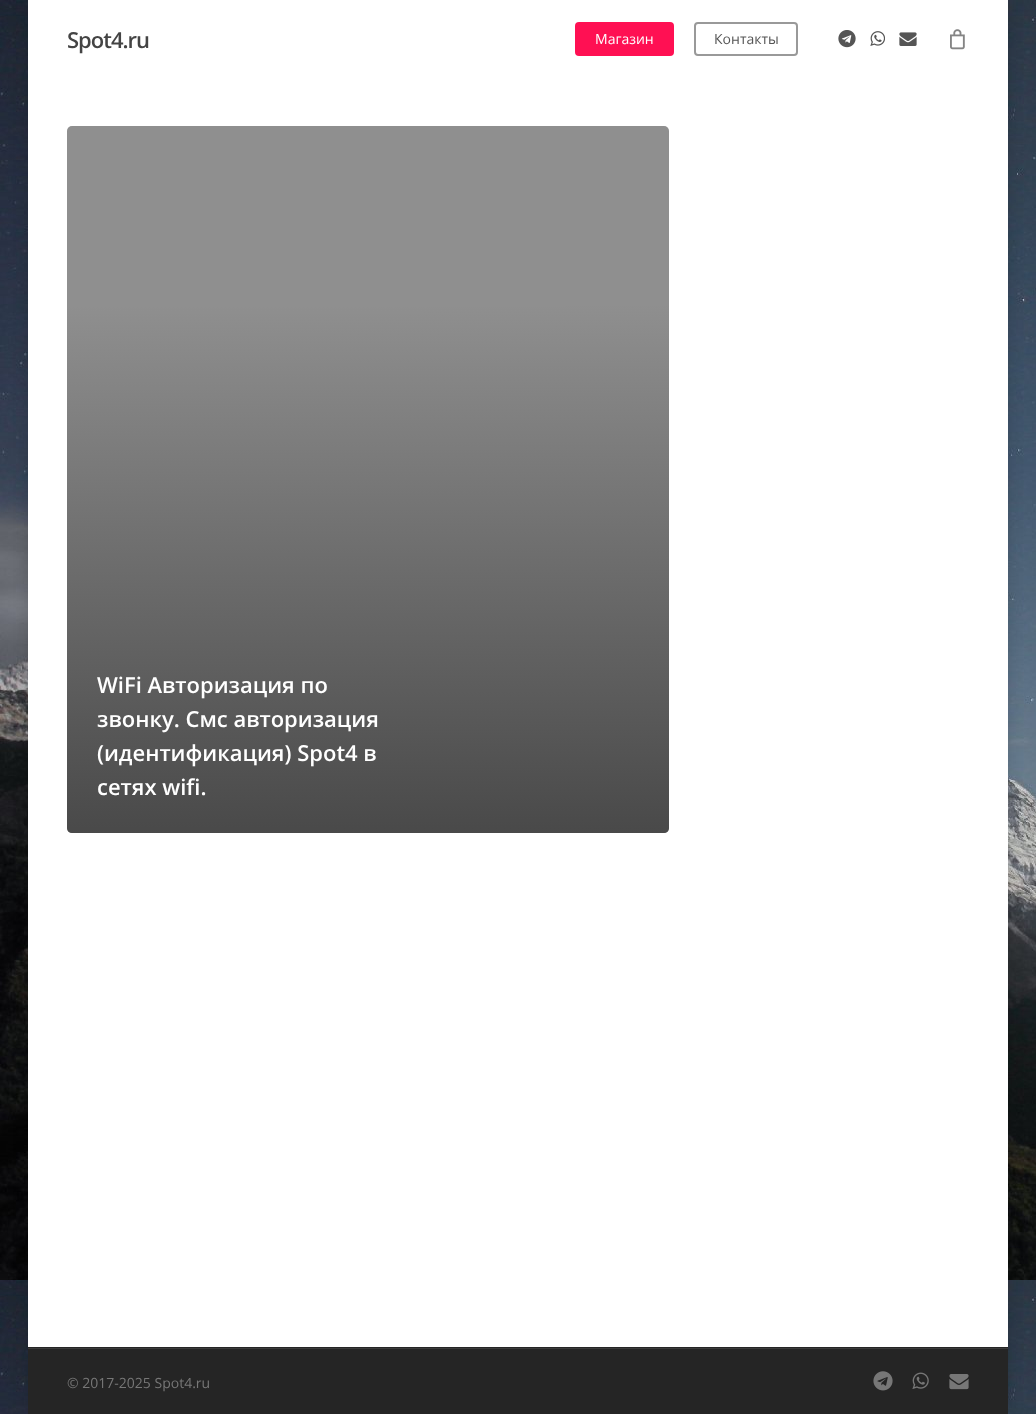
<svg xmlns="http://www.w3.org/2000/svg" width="1036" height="1414">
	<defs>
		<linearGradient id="g1" gradientUnits="userSpaceOnUse" x1="369" y1="304" x2="370" y2="837"><stop offset="0" stop-color="#232323" stop-opacity="0" /><stop offset="1" stop-color="#232323" stop-opacity="0.65" /></linearGradient>
	</defs>
	<rect width="100%" height="100%" fill="#FFFFFF" />
	<image x="0" y="0" width="1036" height="1414" href="assets/img1.png" />
	<rect x="28" y="0" width="980" height="1414" fill="#000000" fill-opacity="0.15" filter="blur(7.5px)" />
	<rect x="28" y="0" width="980" height="1347" fill="#FFFFFF" />
	<text x="67" y="48" font-family="Open Sans" font-size="22" font-weight="600" letter-spacing="-1" fill="#444444">Spot4.ru</text>
	<rect x="575" y="22" width="99" height="34" rx="4" fill="#FF1053" />
	<text x="595" y="44" font-family="Open Sans" font-size="14" fill="#FFFFFF">Магазин</text>
	<rect x="695" y="23" width="102" height="32" rx="3" fill="none" stroke="#999999" stroke-width="2" />
	<text x="714" y="44" font-family="Open Sans" font-size="14" fill="#555555">Контакты</text>
	<image x="838" y="30" width="18" height="18" href="assets/img2.png" />
	<image x="870" y="31" width="15" height="15" href="assets/img3.png" />
	<image x="899" y="32" width="18" height="14" href="assets/img4.png" />
	<image x="950" y="29" width="15" height="21" href="assets/img5.png" />
	<rect x="67" y="126" width="602" height="707" rx="5" fill="#B3B3B3" />
	<rect x="67" y="126" width="602" height="707" rx="5" fill="#000000" fill-opacity="0.2" />
	<path d="M67 304H669V828C669 831 667 833 664 833H72C69 833 67 831 67 828Z" fill="url(#g1)" />
	<g font-family="Open Sans" font-size="22" font-weight="600" fill="#FFFFFF">
		<text x="97" y="693">WiFi Авторизация по</text>
		<text x="97" y="727">звонку. Cмс авторизация</text>
		<text x="97" y="761">(идентификация) Spot4 в</text>
		<text x="97" y="795">сетях wifi.</text>
	</g>
	<rect x="28" y="1347" width="980" height="67" fill="#252525" />
	<rect x="28" y="1348" width="980" height="1" fill="#3B3B3B" />
	<text x="67" y="1388" font-family="Open Sans" font-size="14" fill="#777777">© 2017-2025 Spot4.ru</text>
	<image x="873" y="1371" width="20" height="20" href="assets/img6.png" />
	<image x="912" y="1372" width="17" height="17" href="assets/img7.png" />
	<image x="949" y="1374" width="20" height="16" href="assets/img8.png" />
</svg>
